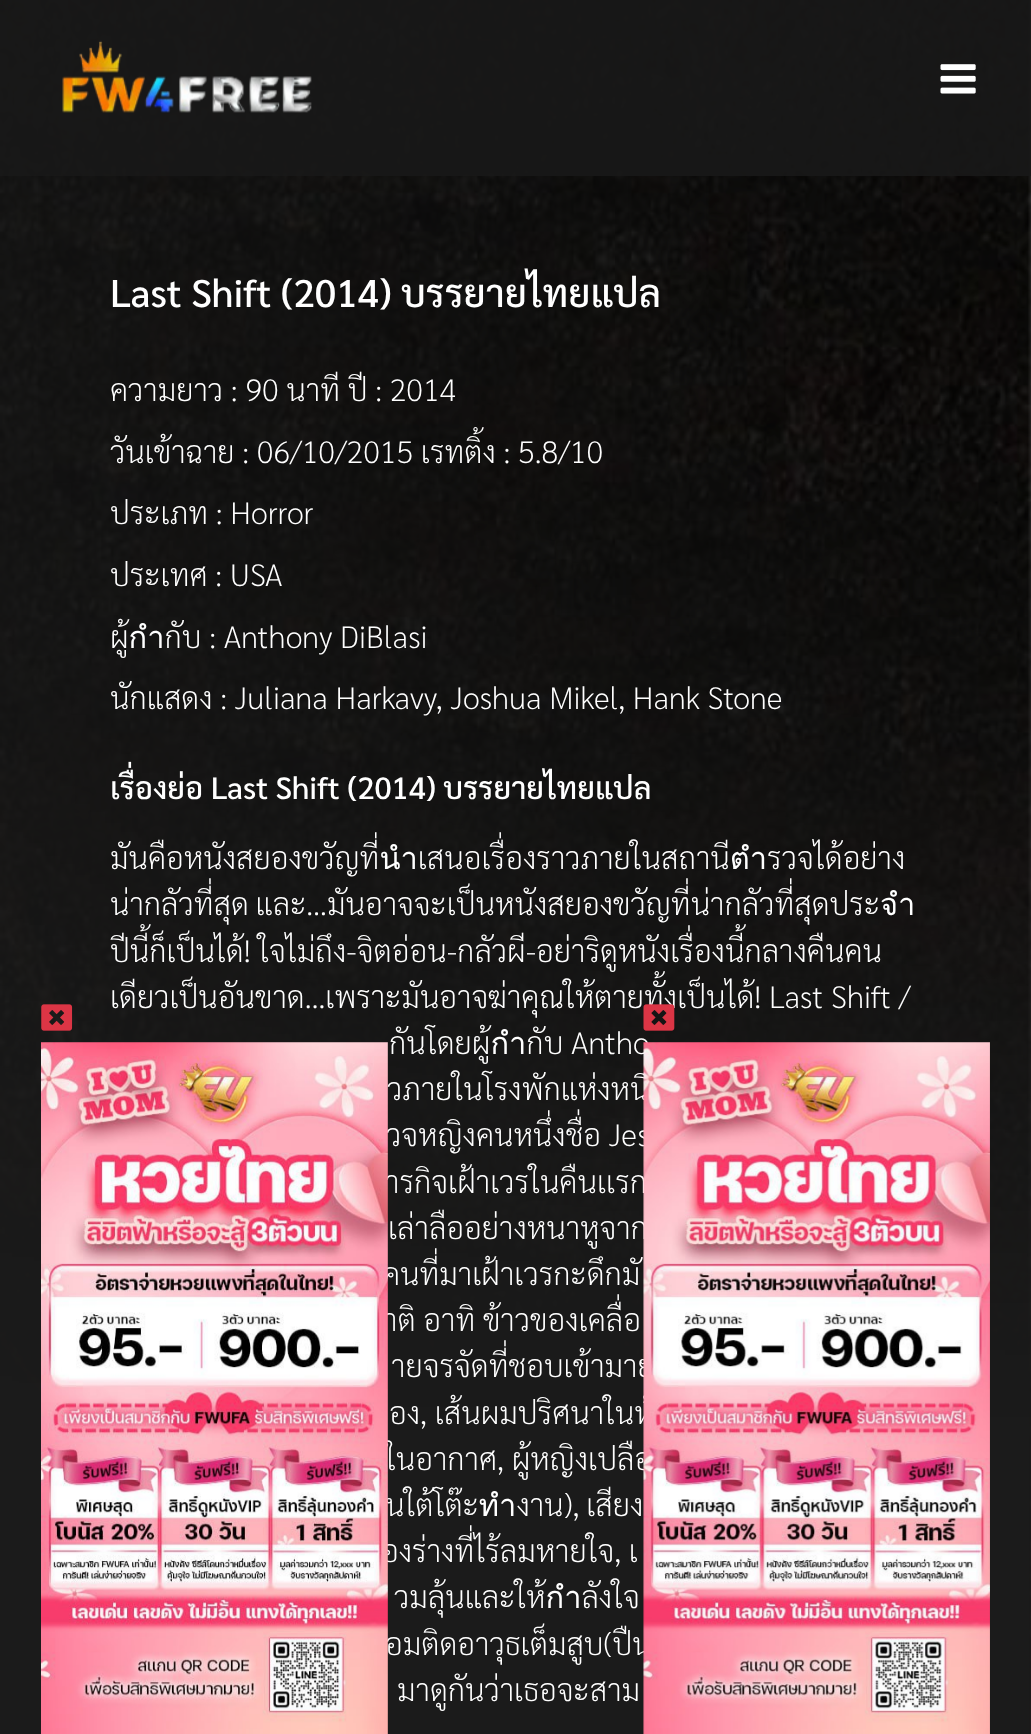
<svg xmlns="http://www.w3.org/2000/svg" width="1031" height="1734">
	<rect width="100%" height="100%" fill="#FFFFFF" />
	<image x="0" y="0" width="1031" height="1734" href="assets/img3.png" />
	<image x="0" y="0" width="1031" height="1734" href="assets/img4.png" />
	<rect x="0" y="0" width="1031" height="176" fill="#181818" fill-opacity="0.9" />
	<image x="62" y="40" width="250" height="73" href="assets/img1.png" />
	<image x="940" y="64" width="36" height="30" href="assets/img2.png" />
	<text x="110" y="307" font-family="Sarabun" font-size="38.5" font-weight="500" fill="#FFFFFF">Last Shift (2014) บรรยายไทยแปล</text>
	<g font-family="Sarabun" font-size="30.8" font-weight="200" fill="#FFFFFF">
		<text x="110" y="401">ความยาว : 90 นาที ปี : 2014</text>
		<text x="110" y="463">วันเข้าฉาย : 06/10/2015 เรทติ้ง :</text>
		<text x="518" y="463">5.8/10</text>
		<text x="110" y="524">ประเภท : Horror</text>
		<text x="110" y="586">ประเทศ : USA</text>
		<text x="110" y="648">ผู้กำกับ : Anthony DiBlasi</text>
		<text x="110" y="709">นักแสดง : Juliana Harkavy, Joshua Mikel, Hank Stone</text>
	</g>
	<text x="110" y="799" font-family="Sarabun" font-size="30.8" font-weight="500" fill="#FFFFFF">เรื่องย่อ Last Shift (2014) บรรยายไทยแปล</text>
	<g font-family="Sarabun" font-size="30.8" font-weight="200" fill="#FFFFFF">
		<text x="110" y="869">มันคือหนังสยองขวัญที่นำเสนอเรื่องราวภายในสถานีตำรวจได้อย่าง</text>
		<text x="110" y="915" word-spacing="-1">น่ากลัวที่สุด และ…มันอาจจะเป็นหนังสยองขวัญที่น่ากลัวที่สุดประจำ</text>
		<text x="110" y="962">ปีนี้ก็เป็นได้! ใจไม่ถึง-จิตอ่อน-กลัวผี-อย่าริดูหนังเรื่องนี้กลางคืนคน</text>
		<text x="110" y="1008">เดียวเป็นอันขาด…เพราะมันอาจฆ่าคุณให้ตายทั้งเป็นได้! Last Shift /</text>
		<text x="389" y="1054">กันโดยผู้กำกับ Antho</text>
		<text x="387" y="1100">วภายในโรงพักแห่งหนึ่</text>
		<text x="386" y="1146">วจหญิงคนหนึ่งชื่อ Jes</text>
		<text x="385" y="1193">ารกิจเฝ้าเวรในคืนเเรก</text>
		<text x="388" y="1239">เล่าลืออย่างหนาหูจาก</text>
		<text x="382" y="1285">คนที่มาเฝ้าเวรกะดึกมั</text>
		<text x="383" y="1331">าติ อาทิ ข้าวของเคลื่อ</text>
		<text x="391" y="1377">ายจรจัดที่ชอบเข้ามาย</text>
		<text x="389" y="1424">อง, เส้นผมปริศนาในห้</text>
		<text x="385" y="1470">ในอากาศ, ผู้หญิงเปลือ</text>
		<text x="385" y="1516" word-spacing="-1">นใต้โต๊ะทำงาน), เสียง</text>
		<text x="381" y="1562">องร่างที่ไร้ลมหายใจ, เ</text>
		<text x="394" y="1608" word-spacing="-1">วมลุ้นและให้กำลังใจ</text>
		<text x="385" y="1655" word-spacing="-1">อมติดอาวุธเต็มสูบ(ปืน</text>
		<text x="397" y="1701">มาดูกันว่าเธอจะสาม</text>
	</g>
	<image x="41" y="1004" width="32" height="27" href="assets/img5.png" />
	<image x="41" y="1042" width="347" height="692" href="assets/img6.png" />
	<image x="643" y="1004" width="32" height="27" href="assets/img7.png" />
	<image x="643" y="1042" width="347" height="692" href="assets/img8.png" />
</svg>
